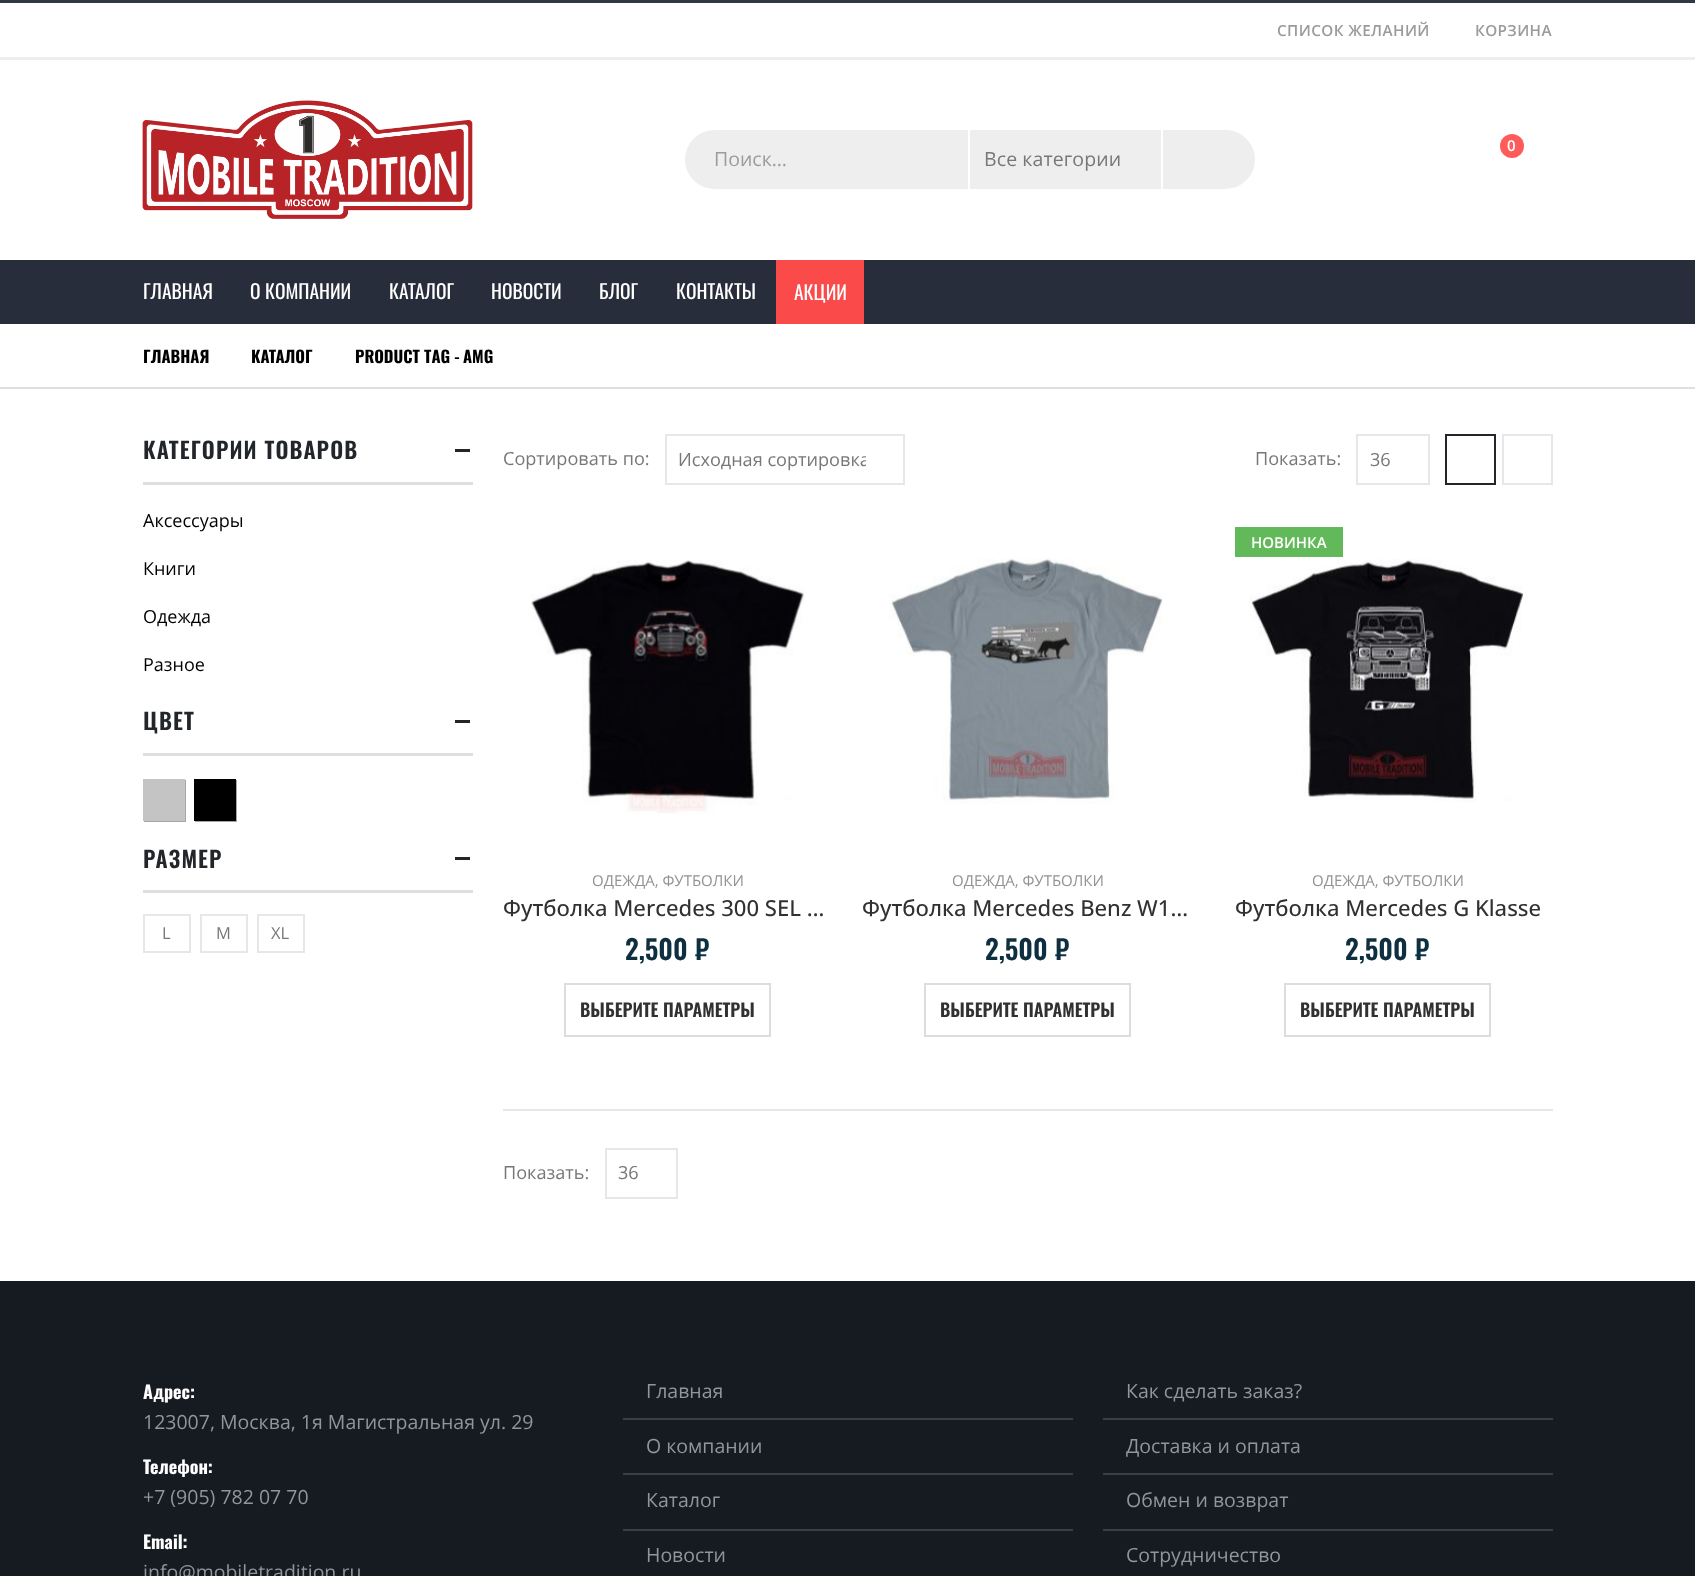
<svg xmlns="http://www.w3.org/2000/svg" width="1695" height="1576">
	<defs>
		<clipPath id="clip1"><rect x="678" y="446" width="188" height="27" /></clipPath>
	</defs>
	<rect width="100%" height="100%" fill="#FFFFFF" />
	<rect x="0" y="0" width="1695" height="3" fill="#2F3946" />
	<rect x="0" y="57" width="1695" height="3" fill="#EEEEEE" />
	<g font-family="Open Sans" font-size="15.25" font-weight="600" letter-spacing="0.4" fill="#9B9B9B">
		<text x="1277" y="36">СПИСОК ЖЕЛАНИЙ</text>
		<text x="1475" y="36">КОРЗИНА</text>
	</g>
	<image x="142" y="100" width="331" height="119" href="assets/img1.png" />
	<circle cx="1512" cy="146" r="12" fill="#FF5B5B" />
	<text x="1507" y="151" font-family="Open Sans" font-size="15" font-weight="600" fill="#FFFFFF">0</text>
	<rect x="684" y="129" width="572" height="61" rx="30.5" fill="#EEEEEE" stroke="#FFFFFF" stroke-width="2" />
	<rect x="968" y="129" width="2" height="60" fill="#FFFFFF" />
	<text x="714" y="166" font-family="Open Sans" font-size="19.5" fill="#9B9B9B">Поиск…</text>
	<rect x="1161" y="129" width="2" height="60" fill="#FFFFFF" />
	<text x="984" y="166" font-family="Open Sans" font-size="19.5" letter-spacing="0.1" fill="#777777">Все категории</text>
	<rect x="0" y="260" width="1695" height="64" fill="#282D3B" />
	<g font-family="Oswald" font-size="19.5" fill="#FFFFFF">
		<text x="143" y="299">ГЛАВНАЯ</text>
		<text x="250" y="299">О КОМПАНИИ</text>
		<text x="389" y="299">КАТАЛОГ</text>
		<text x="491" y="299">НОВОСТИ</text>
		<text x="599" y="299">БЛОГ</text>
		<text x="676" y="299">КОНТАКТЫ</text>
	</g>
	<rect x="776" y="260" width="88" height="64" fill="#FA4A4A" />
	<text x="794" y="300" font-family="Oswald" font-size="19.5" fill="#FFFFFF">АКЦИИ</text>
	<rect x="0" y="387" width="1695" height="2" fill="#DFDFDF" />
	<g font-family="Oswald" font-size="16.5" font-weight="700" fill="#000000">
		<text x="143" y="363">ГЛАВНАЯ</text>
		<text x="251" y="363">КАТАЛОГ</text>
		<text x="355" y="363">PRODUCT TAG -</text>
		<text x="463" y="363">AMG</text>
	</g>
	<rect x="143" y="482" width="330" height="3" fill="#DFDFDF" />
	<text x="143" y="459" font-family="Oswald" font-size="22.5" font-weight="600" letter-spacing="1.1" fill="#222529">КАТЕГОРИИ ТОВАРОВ</text>
	<rect x="455" y="449" width="15" height="3" fill="#222529" />
	<g font-family="Open Sans" font-size="18" fill="#000000">
		<text x="143" y="527">Аксессуары</text>
		<text x="143" y="575">Книги</text>
		<text x="143" y="623">Одежда</text>
		<text x="143" y="671">Разное</text>
	</g>
	<rect x="143" y="753" width="330" height="3" fill="#DFDFDF" />
	<text x="143" y="730" font-family="Oswald" font-size="22.5" font-weight="600" letter-spacing="1.1" fill="#222529">ЦВЕТ</text>
	<rect x="455" y="720" width="15" height="3" fill="#222529" />
	<path d="M144 820V822H186V780H184V820Z" fill="#A6A6A6" />
	<rect x="143" y="779" width="42" height="42" fill="#C4C4C4" />
	<path d="M195 820V822H237V780H236V820Z" fill="#A6A6A6" />
	<rect x="194" y="779" width="42" height="42" fill="#000000" />
	<rect x="143" y="890" width="330" height="3" fill="#DFDFDF" />
	<text x="143" y="868" font-family="Oswald" font-size="22.5" font-weight="600" letter-spacing="1.1" fill="#222529">РАЗМЕР</text>
	<rect x="455" y="857" width="15" height="3" fill="#222529" />
	<rect x="144" y="915" width="46" height="37" fill="none" stroke="#E7E7E7" stroke-width="2" />
	<text x="162" y="939" font-family="Open Sans" font-size="16.5" fill="#777777">L</text>
	<rect x="201" y="915" width="46" height="37" fill="none" stroke="#E7E7E7" stroke-width="2" />
	<text x="216" y="939" font-family="Open Sans" font-size="16.5" fill="#777777">M</text>
	<rect x="258" y="915" width="46" height="37" fill="none" stroke="#E7E7E7" stroke-width="2" />
	<text x="271" y="939" font-family="Open Sans" font-size="16.5" fill="#777777">XL</text>
	<text x="503" y="465" font-family="Open Sans" font-size="18.1" fill="#777777">Сортировать по:</text>
	<rect x="666" y="435" width="238" height="49" fill="none" stroke="#E7E7E7" stroke-width="2" />
	<g clip-path="url(#clip1)">
		<text x="678" y="466" font-family="Open Sans" font-size="18.1" fill="#777777">Исходная сортировка</text>
	</g>
	<text x="1255" y="465" font-family="Open Sans" font-size="18.1" fill="#777777">Показать:</text>
	<rect x="1357" y="435" width="72" height="49" fill="none" stroke="#E7E7E7" stroke-width="2" />
	<text x="1370" y="466" font-family="Open Sans" font-size="18.1" fill="#777777">36</text>
	<rect x="1446" y="435" width="49" height="49" fill="none" stroke="#222529" stroke-width="2" />
	<rect x="1503" y="435" width="49" height="49" fill="none" stroke="#E7E7E7" stroke-width="2" />
	<image x="531" y="560" width="274" height="254" href="assets/img2.png" />
	<text x="592" y="886" font-family="Open Sans" font-size="15" fill="#929292">ОДЕЖДА, ФУТБОЛКИ</text>
	<text x="503" y="916" font-family="Open Sans" font-size="22.1" font-weight="500" fill="#313131">Футболка Mercedes 300 SEL …</text>
	<text x="625" y="960" font-family="Oswald" font-size="27" font-weight="600" fill="#0E2F40">2,500 ₽</text>
	<rect x="565" y="984" width="205" height="52" fill="none" stroke="#DDDDDD" stroke-width="2" />
	<text x="580" y="1017" font-family="Oswald" font-size="18" font-weight="600" fill="#313131">ВЫБЕРИТЕ ПАРАМЕТРЫ</text>
	<image x="888" y="558" width="275" height="246" href="assets/img3.png" />
	<text x="952" y="886" font-family="Open Sans" font-size="15" fill="#929292">ОДЕЖДА, ФУТБОЛКИ</text>
	<text x="862" y="916" font-family="Open Sans" font-size="22.1" font-weight="500" fill="#313131">Футболка Mercedes Benz W1…</text>
	<text x="985" y="960" font-family="Oswald" font-size="27" font-weight="600" fill="#0E2F40">2,500 ₽</text>
	<rect x="925" y="984" width="205" height="52" fill="none" stroke="#DDDDDD" stroke-width="2" />
	<text x="940" y="1017" font-family="Oswald" font-size="18" font-weight="600" fill="#313131">ВЫБЕРИТЕ ПАРАМЕТРЫ</text>
	<rect x="1235" y="527" width="108" height="30" fill="#62B959" />
	<text x="1251" y="548" font-family="Open Sans" font-size="15" font-weight="600" fill="#FFFFFF">НОВИНКА</text>
	<image x="1250" y="559" width="277" height="243" href="assets/img4.png" />
	<text x="1312" y="886" font-family="Open Sans" font-size="15" fill="#929292">ОДЕЖДА, ФУТБОЛКИ</text>
	<text x="1235" y="916" font-family="Open Sans" font-size="22.1" font-weight="500" fill="#313131">Футболка Mercedes G Klasse</text>
	<text x="1345" y="960" font-family="Oswald" font-size="27" font-weight="600" fill="#0E2F40">2,500 ₽</text>
	<rect x="1285" y="984" width="205" height="52" fill="none" stroke="#DDDDDD" stroke-width="2" />
	<text x="1300" y="1017" font-family="Oswald" font-size="18" font-weight="600" fill="#313131">ВЫБЕРИТЕ ПАРАМЕТРЫ</text>
	<rect x="503" y="1109" width="1050" height="2" fill="#E7E7E7" />
	<text x="503" y="1179" font-family="Open Sans" font-size="18.1" fill="#777777">Показать:</text>
	<rect x="606" y="1149" width="71" height="49" fill="none" stroke="#E7E7E7" stroke-width="2" />
	<text x="618" y="1179" font-family="Open Sans" font-size="18.1" fill="#777777">36</text>
	<rect x="0" y="1281" width="1695" height="295" fill="#161A21" />
	<text x="143" y="1399" font-family="Oswald" font-size="18" font-weight="700" fill="#FFFFFF">Адрес:</text>
	<text x="143" y="1429" font-family="Open Sans" font-size="19.5" fill="#90969A">123007, Москва, 1я Магистральная ул. 29</text>
	<text x="143" y="1474" font-family="Oswald" font-size="18" font-weight="700" fill="#FFFFFF">Телефон:</text>
	<text x="143" y="1504" font-family="Open Sans" font-size="19.5" fill="#90969A">+7 (905) 782 07 70</text>
	<text x="143" y="1549" font-family="Oswald" font-size="18" font-weight="700" fill="#FFFFFF">Email:</text>
	<g font-family="Open Sans" font-size="19.5" fill="#90969A">
		<text x="143" y="1579">info@mobiletradition.ru</text>
		<text x="646" y="1398">Главная</text>
	</g>
	<rect x="623" y="1418" width="450" height="2" fill="#3B3F45" />
	<text x="646" y="1453" font-family="Open Sans" font-size="19.5" fill="#90969A">О компании</text>
	<rect x="623" y="1473" width="450" height="2" fill="#3B3F45" />
	<text x="646" y="1507" font-family="Open Sans" font-size="19.5" fill="#90969A">Каталог</text>
	<rect x="623" y="1529" width="450" height="2" fill="#3B3F45" />
	<g font-family="Open Sans" font-size="19.5" fill="#90969A">
		<text x="646" y="1562">Новости</text>
		<text x="1126" y="1398">Как сделать заказ?</text>
	</g>
	<rect x="1103" y="1418" width="450" height="2" fill="#3B3F45" />
	<text x="1126" y="1453" font-family="Open Sans" font-size="19.5" fill="#90969A">Доставка и оплата</text>
	<rect x="1103" y="1473" width="450" height="2" fill="#3B3F45" />
	<text x="1126" y="1507" font-family="Open Sans" font-size="19.5" fill="#90969A">Обмен и возврат</text>
	<rect x="1103" y="1529" width="450" height="2" fill="#3B3F45" />
	<text x="1126" y="1562" font-family="Open Sans" font-size="19.5" fill="#90969A">Сотрудничество</text>
</svg>
